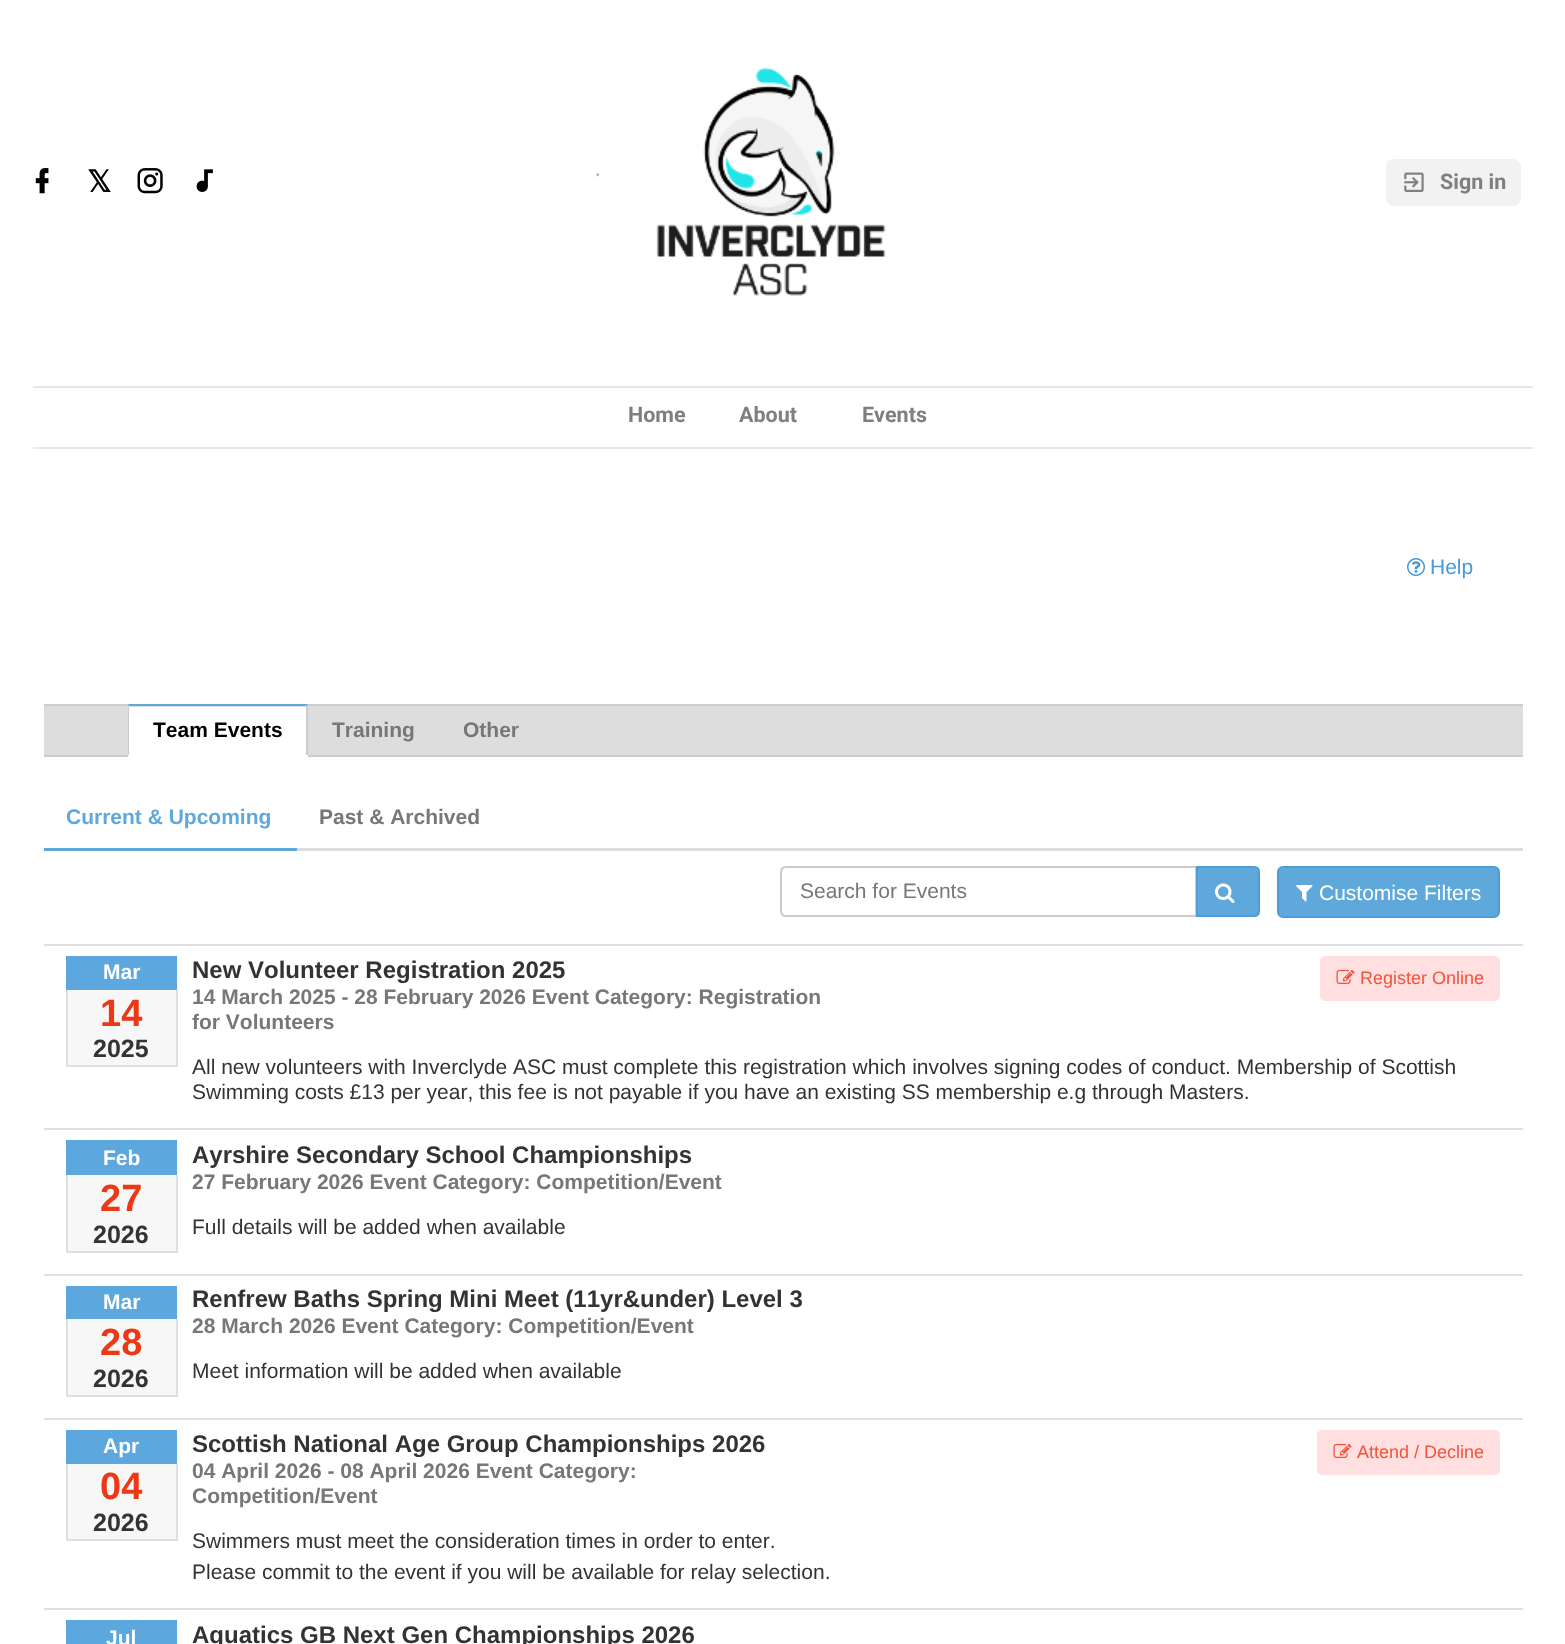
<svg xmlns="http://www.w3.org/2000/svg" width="1565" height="1644">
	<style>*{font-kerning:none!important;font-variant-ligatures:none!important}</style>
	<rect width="100%" height="100%" fill="#FFFFFF" />
	<image x="35" y="168" width="14" height="26" href="assets/img1.png" />
	<text x="87" y="192" font-family="DejaVu Sans" font-size="30" font-weight="700" fill="#000000">𝕏</text>
	<image x="137" y="168" width="26" height="26" href="assets/img2.png" />
	<image x="196" y="169" width="17" height="23" href="assets/img3.png" />
	<image x="596" y="67" width="290" height="229" href="assets/img4.png" />
	<rect x="1386" y="159" width="135" height="47" rx="8" fill="#F2F2F2" />
	<image x="1404" y="172" width="20" height="20" href="assets/img5.png" />
	<text x="1440" y="189" font-family="Roboto" font-size="21.5" font-weight="700" fill="#7F7F7F">Sign in</text>
	<rect x="33" y="386" width="1500" height="2" fill="#E7E7E7" />
	<rect x="33" y="447" width="1500" height="2" fill="#E7E7E7" />
	<g font-family="Roboto" font-size="21.5" font-weight="700" fill="#7F7F7F">
		<text x="628" y="422">Home</text>
		<text x="739" y="422">About</text>
		<text x="862" y="422">Events</text>
	</g>
	<image x="1407" y="558" width="18" height="18" href="assets/img6.png" />
	<text x="1430" y="574" font-family="Liberation Sans" font-size="21" fill="#469ADB">Help</text>
	<rect x="44" y="706" width="1479" height="49" fill="#DDDDDD" />
	<rect x="44" y="704" width="1479" height="2" fill="#CCCCCC" />
	<rect x="44" y="755" width="1479" height="2" fill="#CCCCCC" />
	<rect x="129" y="707" width="177" height="48" fill="#FFFFFF" />
	<path d="M128 704H308L306 706H129Z" fill="#5FA8DC" />
	<path d="M308 704V756L306 754V706Z" fill="#CCCCCC" />
	<rect x="128" y="755" width="180" height="2" fill="#FFFFFF" />
	<path d="M128 756V704L129 706V754Z" fill="#CCCCCC" />
	<text x="153" y="737" font-family="Liberation Sans" font-size="21" font-weight="700" fill="#000000">Team Events</text>
	<g font-family="Liberation Sans" font-size="21" font-weight="700" fill="#777777">
		<text x="332" y="737">Training</text>
		<text x="463" y="737">Other</text>
	</g>
	<rect x="297" y="848" width="1226" height="3" fill="#DDDDDD" />
	<rect x="44" y="848" width="253" height="3" fill="#5FA8DC" />
	<text x="66" y="824" font-family="Liberation Sans" font-size="21" font-weight="700" fill="#5FA8DC">Current &amp; Upcoming</text>
	<text x="319" y="824" font-family="Liberation Sans" font-size="21" font-weight="700" fill="#777777">Past &amp; Archived</text>
	<path d="M786 868H1196V867H787C784 867 782 870 782 873C782 871 784 868 786 868Z" fill="#ECECEC" />
	<path d="M786 867H1196V916H786C783 916 781 914 781 911V872C781 869 783 867 786 867Z" fill="none" stroke="#CCCCCC" stroke-width="2" />
	<text x="800" y="898" font-family="Liberation Sans" font-size="21" fill="#777777">Search for Events</text>
	<path d="M1197 867H1254C1257 867 1259 869 1259 872V911C1259 914 1257 916 1254 916H1197Z" fill="#5FA8DC" stroke="#4A9DD7" stroke-width="2" />
	<image x="1215" y="883" width="20" height="20" href="assets/img7.png" />
	<rect x="1278" y="867" width="221" height="50" rx="5" fill="#5FA8DC" stroke="#4A9DD7" stroke-width="2" />
	<image x="1296" y="885" width="17" height="17" href="assets/img8.png" />
	<text x="1319" y="900" font-family="Liberation Sans" font-size="21" fill="#FFFFFF">Customise Filters</text>
	<rect x="44" y="944" width="1479" height="2" fill="#DFDFDF" />
	<rect x="68" y="990" width="108" height="75" fill="#F7F7F7" />
	<rect x="66" y="956" width="111" height="34" fill="#5CA7DE" />
	<text x="103" y="979" font-family="Liberation Sans" font-size="21" font-weight="700" fill="#FFFFFF">Mar</text>
	<rect x="176" y="990" width="2" height="77" fill="#DFDFDF" />
	<rect x="66" y="990" width="2" height="45" fill="#DFDFDF" />
	<text x="100" y="1026" font-family="Liberation Sans" font-size="38" font-weight="700" fill="#EE3715">14</text>
	<rect x="66" y="1065" width="111" height="2" fill="#DFDFDF" />
	<rect x="66" y="1035" width="2" height="32" fill="#DFDFDF" />
	<text x="93" y="1057" font-family="Liberation Sans" font-size="25" font-weight="700" fill="#333333">2025</text>
	<text x="192" y="978" font-family="Liberation Sans" font-size="24" font-weight="700" fill="#333333">New Volunteer Registration 2025</text>
	<g font-family="Liberation Sans" font-size="21" font-weight="700" fill="#777777">
		<text x="192" y="1004">14 March 2025 - 28 February 2026 Event Category: Registration</text>
		<text x="192" y="1029">for Volunteers</text>
	</g>
	<rect x="1320" y="956" width="180" height="45" rx="5" fill="#FFDFE0" />
	<image x="1336" y="969" width="19" height="15" href="assets/img9.png" />
	<text x="1360" y="984" font-family="Liberation Sans" font-size="18" fill="#F1543B">Register Online</text>
	<g font-family="Liberation Sans" font-size="21" fill="#333333">
		<text x="192" y="1074">All new volunteers with Inverclyde ASC must complete this registration which involves signing codes of conduct. Membership of Scottish</text>
		<text x="192" y="1099">Swimming costs £13 per year, this fee is not payable if you have an existing SS membership e.g through Masters.</text>
	</g>
	<rect x="44" y="1128" width="1479" height="2" fill="#DFDFDF" />
	<rect x="68" y="1175" width="108" height="76" fill="#F7F7F7" />
	<rect x="66" y="1140" width="111" height="35" fill="#5CA7DE" />
	<text x="103" y="1165" font-family="Liberation Sans" font-size="21" font-weight="700" fill="#FFFFFF">Feb</text>
	<rect x="176" y="1175" width="2" height="78" fill="#DFDFDF" />
	<rect x="66" y="1175" width="2" height="45" fill="#DFDFDF" />
	<text x="100" y="1211" font-family="Liberation Sans" font-size="38" font-weight="700" fill="#EE3715">27</text>
	<rect x="66" y="1251" width="111" height="2" fill="#DFDFDF" />
	<rect x="66" y="1220" width="2" height="33" fill="#DFDFDF" />
	<text x="93" y="1243" font-family="Liberation Sans" font-size="25" font-weight="700" fill="#333333">2026</text>
	<text x="192" y="1163" font-family="Liberation Sans" font-size="24" font-weight="700" fill="#333333">Ayrshire Secondary School Championships</text>
	<text x="192" y="1189" font-family="Liberation Sans" font-size="21" font-weight="700" fill="#777777">27 February 2026 Event Category: Competition/Event</text>
	<text x="192" y="1234" font-family="Liberation Sans" font-size="21" fill="#333333">Full details will be added when available</text>
	<rect x="44" y="1274" width="1479" height="2" fill="#DFDFDF" />
	<rect x="68" y="1319" width="108" height="76" fill="#F7F7F7" />
	<rect x="66" y="1286" width="111" height="33" fill="#5CA7DE" />
	<text x="103" y="1309" font-family="Liberation Sans" font-size="21" font-weight="700" fill="#FFFFFF">Mar</text>
	<rect x="176" y="1319" width="2" height="78" fill="#DFDFDF" />
	<rect x="66" y="1319" width="2" height="46" fill="#DFDFDF" />
	<text x="100" y="1355" font-family="Liberation Sans" font-size="38" font-weight="700" fill="#EE3715">28</text>
	<rect x="66" y="1395" width="111" height="2" fill="#DFDFDF" />
	<rect x="66" y="1365" width="2" height="32" fill="#DFDFDF" />
	<text x="93" y="1387" font-family="Liberation Sans" font-size="25" font-weight="700" fill="#333333">2026</text>
	<text x="192" y="1307" font-family="Liberation Sans" font-size="24" font-weight="700" fill="#333333">Renfrew Baths Spring Mini Meet (11yr&amp;under) Level 3</text>
	<text x="192" y="1333" font-family="Liberation Sans" font-size="21" font-weight="700" fill="#777777">28 March 2026 Event Category: Competition/Event</text>
	<text x="192" y="1378" font-family="Liberation Sans" font-size="21" fill="#333333">Meet information will be added when available</text>
	<rect x="44" y="1418" width="1479" height="2" fill="#DFDFDF" />
	<rect x="68" y="1464" width="108" height="75" fill="#F7F7F7" />
	<rect x="66" y="1430" width="111" height="34" fill="#5CA7DE" />
	<text x="103" y="1453" font-family="Liberation Sans" font-size="21" font-weight="700" fill="#FFFFFF">Apr</text>
	<rect x="176" y="1464" width="2" height="77" fill="#DFDFDF" />
	<rect x="66" y="1464" width="2" height="45" fill="#DFDFDF" />
	<text x="100" y="1499" font-family="Liberation Sans" font-size="38" font-weight="700" fill="#EE3715">04</text>
	<rect x="66" y="1539" width="111" height="2" fill="#DFDFDF" />
	<rect x="66" y="1509" width="2" height="32" fill="#DFDFDF" />
	<text x="93" y="1531" font-family="Liberation Sans" font-size="25" font-weight="700" fill="#333333">2026</text>
	<text x="192" y="1452" font-family="Liberation Sans" font-size="24" font-weight="700" fill="#333333">Scottish National Age Group Championships 2026</text>
	<g font-family="Liberation Sans" font-size="21" font-weight="700" fill="#777777">
		<text x="192" y="1478">04 April 2026 - 08 April 2026 Event Category:</text>
		<text x="192" y="1503">Competition/Event</text>
	</g>
	<rect x="1317" y="1430" width="183" height="45" rx="5" fill="#FFDFE0" />
	<image x="1333" y="1443" width="19" height="15" href="assets/img9.png" />
	<text x="1357" y="1458" font-family="Liberation Sans" font-size="18" fill="#F1543B">Attend / Decline</text>
	<g font-family="Liberation Sans" font-size="21" fill="#333333">
		<text x="192" y="1548">Swimmers must meet the consideration times in order to enter.</text>
		<text x="192" y="1579">Please commit to the event if you will be available for relay selection.</text>
	</g>
	<rect x="44" y="1608" width="1479" height="2" fill="#DFDFDF" />
	<rect x="66" y="1620" width="111" height="24" fill="#5CA7DE" />
	<text x="106" y="1645" font-family="Liberation Sans" font-size="21" font-weight="700" fill="#FFFFFF">Jul</text>
	<text x="192" y="1643" font-family="Liberation Sans" font-size="24" font-weight="700" fill="#333333">Aquatics GB Next Gen Championships 2026</text>
</svg>
